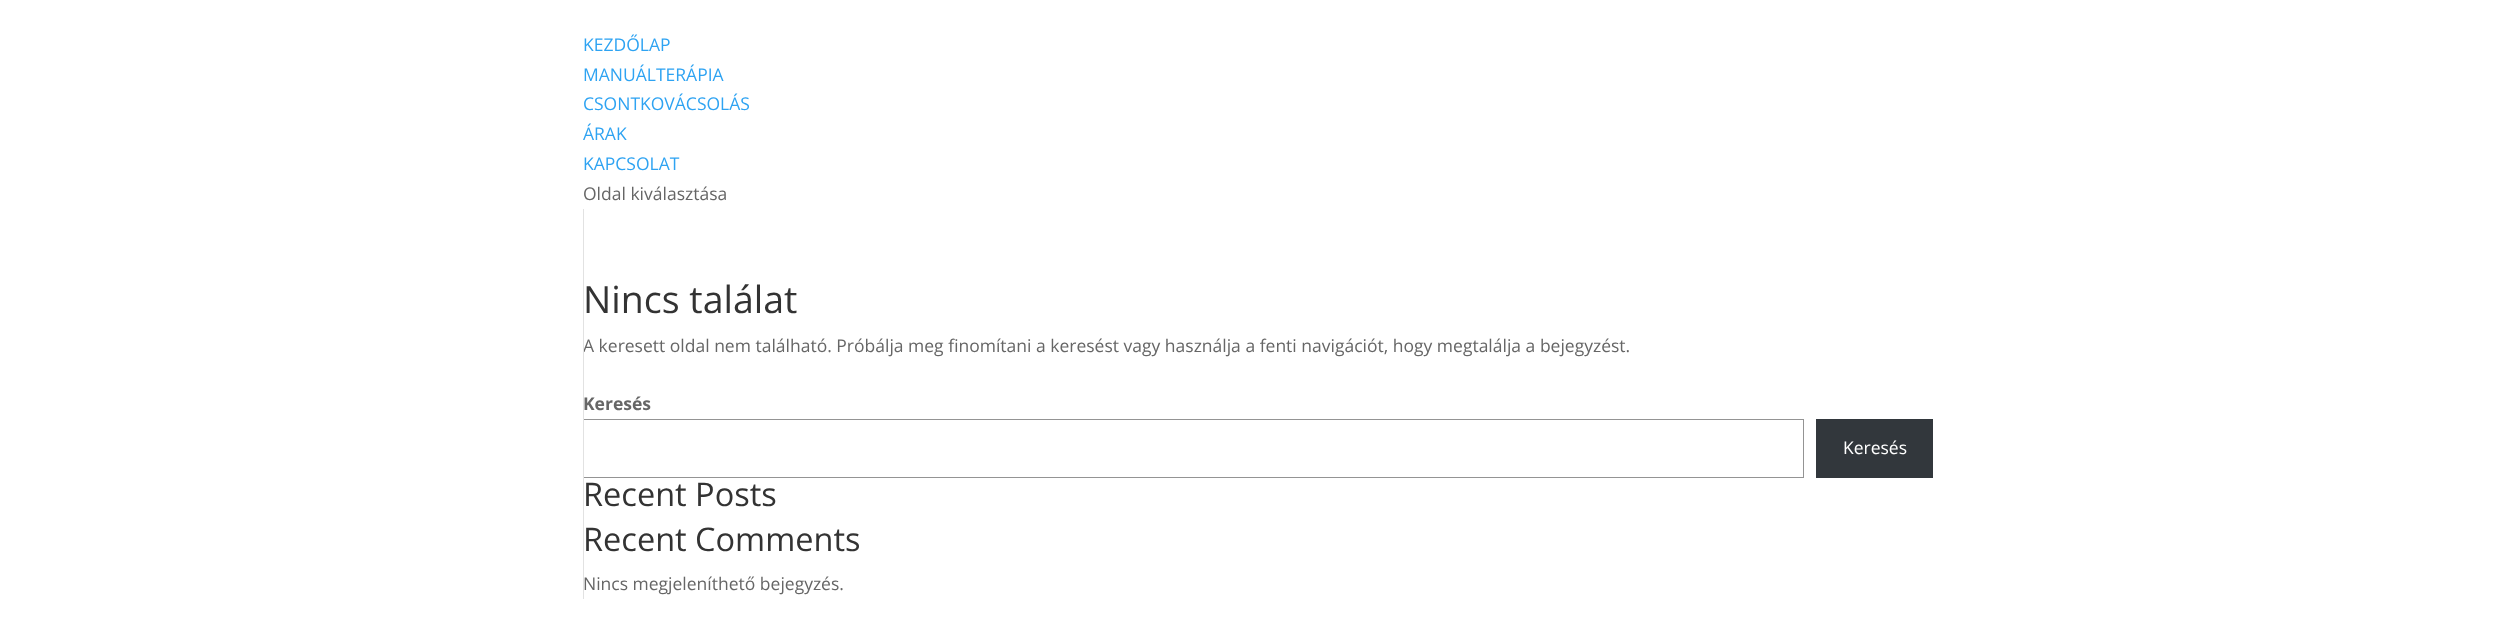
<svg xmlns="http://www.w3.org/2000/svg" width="2514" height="636">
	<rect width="100%" height="100%" fill="#FFFFFF" />
	<g font-family="Open Sans" font-size="17.5" fill="#2EA3F2">
		<text x="583" y="51">KEZDŐLAP</text>
		<text x="583" y="81">MANUÁLTERÁPIA</text>
		<text x="583" y="110">CSONTKOVÁCSOLÁS</text>
		<text x="583" y="140">ÁRAK</text>
		<text x="583" y="170">KAPCSOLAT</text>
	</g>
	<g font-family="Open Sans" font-size="17.5" fill="#666666">
		<text x="583" y="200">Oldal kiválasztása</text>
		<text x="583" y="352">A keresett oldal nem található. Próbálja meg finomítani a keresést vagy használja a fenti navigációt, hogy megtalálja a bejegyzést.</text>
	</g>
	<rect x="583.5" y="419.5" width="1220" height="58" fill="none" stroke="#949494" />
	<rect x="583" y="209" width="1" height="390" fill="#E2E2E2" />
	<text x="583" y="313" font-family="Open Sans" font-size="37.5" fill="#333333">Nincs találat</text>
	<text x="583" y="410" font-family="Open Sans" font-size="17.5" font-weight="700" fill="#666666">Keresés</text>
	<rect x="1816" y="419" width="117" height="59" fill="#32373C" />
	<text x="1843" y="454" font-family="Open Sans" font-size="17.5" fill="#FFFFFF">Keresés</text>
	<g font-family="Open Sans" font-size="32.5" fill="#333333">
		<text x="583" y="506">Recent Posts</text>
		<text x="583" y="551">Recent Comments</text>
	</g>
	<text x="583" y="590" font-family="Open Sans" font-size="17.5" fill="#666666">Nincs megjeleníthető bejegyzés.</text>
</svg>
